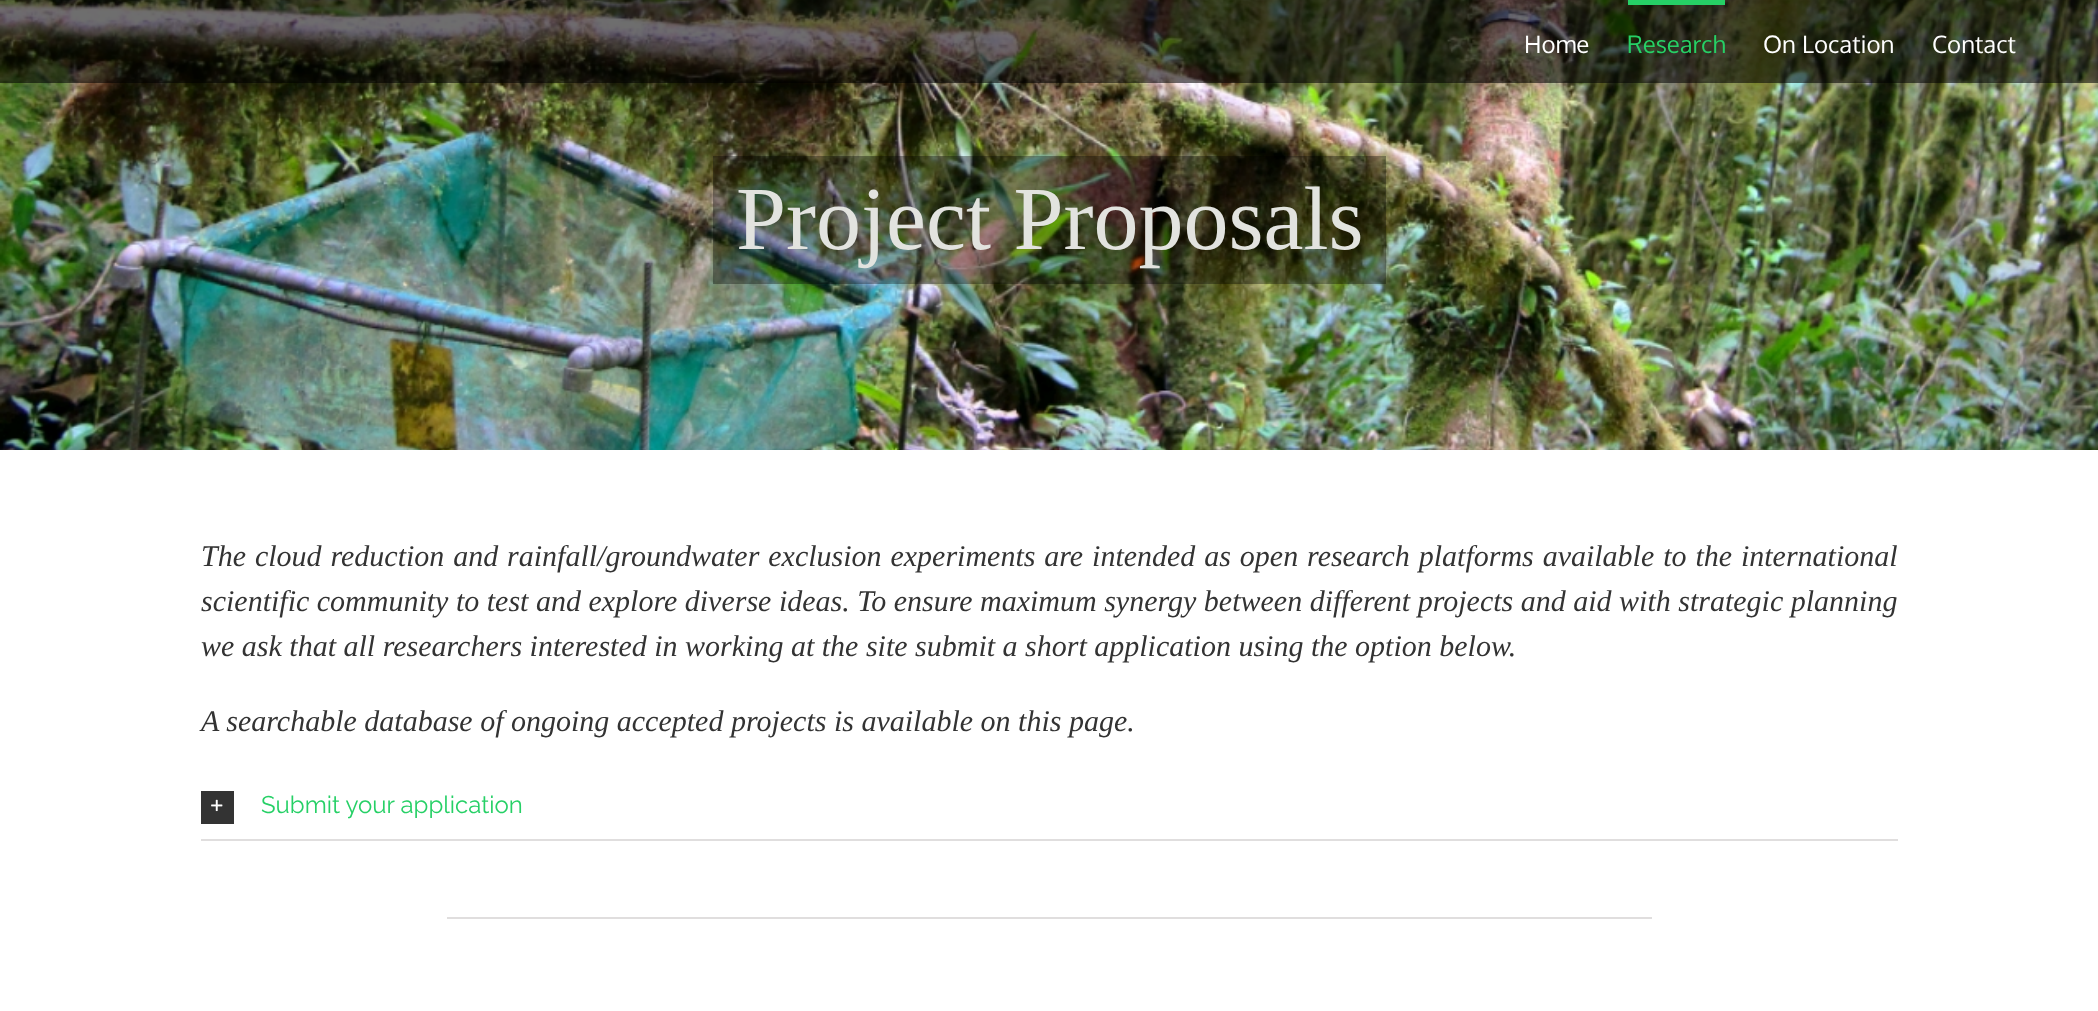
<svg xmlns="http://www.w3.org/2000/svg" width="2098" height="1011">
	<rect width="100%" height="100%" fill="#FFFFFF" />
	<image x="0" y="0" width="2098" height="450" href="assets/img1.png" />
	<rect x="0" y="0" width="2098" height="83" fill="#000000" fill-opacity="0.57" />
	<text x="1524" y="53" font-family="Oxygen" font-size="24" fill="#FFFFFF">Home</text>
	<rect x="1628" y="0" width="97" height="5" fill="#26D066" />
	<text x="1627" y="53" font-family="Oxygen" font-size="24" fill="#26D066">Research</text>
	<g font-family="Oxygen" font-size="24" fill="#FFFFFF">
		<text x="1763" y="53">On Location</text>
		<text x="1932" y="53">Contact</text>
	</g>
	<rect x="713" y="156" width="673" height="128" fill="#000000" fill-opacity="0.34" />
	<text x="736" y="249" font-family="Liberation Serif" font-size="90" fill="#E2E3DF">Project Proposals</text>
	<g font-family="Liberation Serif" font-size="30" font-style="italic" fill="#333333">
		<text x="201" y="566" word-spacing="1.4">The cloud reduction and rainfall/groundwater exclusion experiments are intended as open research platforms available to the international</text>
		<text x="201" y="611">scientific community to test and explore diverse ideas. To ensure maximum synergy between different projects and aid with strategic planning</text>
		<text x="201" y="656">we ask that all researchers interested in working at the site submit a short application using the option below.</text>
		<text x="201" y="731">A searchable database of ongoing accepted projects is available on this page.</text>
	</g>
	<rect x="201" y="839" width="1697" height="2" fill="#E0DEDE" />
	<rect x="201" y="791" width="33" height="33" fill="#333333" />
	<image x="211" y="799" width="12" height="13" href="assets/img2.png" />
	<text x="261" y="813" font-family="Raleway" font-size="24" fill="#26D066">Submit your application</text>
	<rect x="447" y="917" width="1205" height="2" fill="#E0DEDE" />
</svg>
